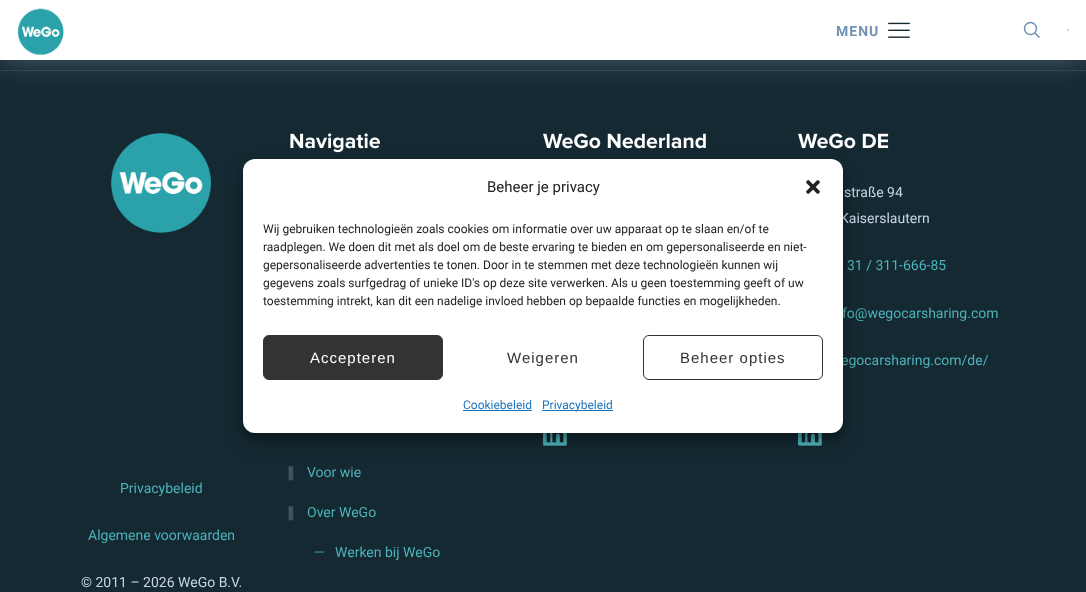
<svg xmlns="http://www.w3.org/2000/svg" width="1086" height="592">
	<rect width="100%" height="100%" fill="#152932" />
	<rect x="0" y="70" width="1086" height="1" fill="#2D3F47" />
	<rect x="0" y="0" width="1086" height="60" fill="#6A8099" fill-opacity="0.6" filter="blur(15px)" />
	<rect x="0" y="0" width="1086" height="60" fill="#FFFFFF" />
	<image x="17" y="8" width="47" height="47" href="assets/img1.png" />
	<text x="836" y="36" font-family="Roboto" font-size="14" font-weight="700" letter-spacing="1" fill="#7191B4">MENU</text>
	<image x="888" y="22" width="22" height="16" href="assets/img2.png" />
	<circle cx="1030.5" cy="28.5" r="6" fill="none" stroke="#7191B4" stroke-width="1.5" />
	<path d="M1034.5 32.5L1039.5 37.5" fill="none" stroke="#7191B4" stroke-width="1.5" />
	<rect x="1067" y="29" width="2" height="2" fill="#CBD8E3" />
	<image x="543" y="133" width="163" height="16" href="assets/img3.png" />
	<image x="543" y="433" width="24" height="13" href="assets/img4.png" />
	<image x="798" y="133" width="91" height="16" href="assets/img5.png" />
	<g font-family="Roboto" font-size="14" fill="#C7D5E1">
		<text x="844" y="197">straße 94</text>
		<text x="840" y="223">Kaiserslautern</text>
	</g>
	<g font-family="Roboto" font-size="14" fill="#4DB2B9">
		<text x="847" y="270">31 / 311-666-85</text>
		<text x="842" y="318">fo@wegocarsharing.com</text>
		<text x="841" y="365">egocarsharing.com/de/</text>
	</g>
	<image x="798" y="433" width="24" height="13" href="assets/img4.png" />
	<image x="111" y="133" width="100" height="100" href="assets/img6.png" />
	<g font-family="Roboto" font-size="14" fill="#4DB2B9">
		<text x="120" y="493">Privacybeleid</text>
		<text x="88" y="540">Algemene voorwaarden</text>
	</g>
	<text x="81" y="587" font-family="Roboto" font-size="14" fill="#C7D5E1">© 2011 – 2026 WeGo B.V.</text>
	<image x="290" y="133" width="90" height="20" href="assets/img7.png" />
	<text x="285" y="477" font-family="DejaVu Sans" font-size="14" fill="#3E525F">❚</text>
	<text x="307" y="477" font-family="Roboto" font-size="14" fill="#4DB2B9">Voor wie</text>
	<text x="285" y="517" font-family="DejaVu Sans" font-size="14" fill="#3E525F">❚</text>
	<text x="307" y="517" font-family="Roboto" font-size="14" fill="#4DB2B9">Over WeGo</text>
	<text x="314" y="557" font-family="Roboto" font-size="14" fill="#2BA2AA">—</text>
	<text x="335" y="557" font-family="Roboto" font-size="14" fill="#4DB2B9">Werken bij WeGo</text>
	<rect x="243" y="165" width="600" height="274" rx="12" fill="#000000" fill-opacity="0.23" filter="blur(3px)" />
	<rect x="243" y="169" width="600" height="274" rx="12" fill="#000000" fill-opacity="0.19" filter="blur(10px)" />
	<rect x="243" y="159" width="600" height="274" rx="12" fill="#FFFFFF" />
	<text x="487" y="192" font-family="Roboto" font-size="15" fill="#222222">Beheer je privacy</text>
	<image x="806" y="180" width="14" height="14" href="assets/img8.png" />
	<g font-family="Roboto" font-size="12" fill="#222222">
		<text x="263" y="233">Wij gebruiken technologieën zoals cookies om informatie over uw apparaat op te slaan en/of te</text>
		<text x="263" y="251">raadplegen. We doen dit met als doel om de beste ervaring te bieden en om gepersonaliseerde en niet-</text>
		<text x="263" y="269">gepersonaliseerde advertenties te tonen. Door in te stemmen met deze technologieën kunnen wij</text>
		<text x="263" y="287">gegevens zoals surfgedrag of unieke ID's op deze site verwerken. Als u geen toestemming geeft of uw</text>
		<text x="263" y="305">toestemming intrekt, kan dit een nadelige invloed hebben op bepaalde functies en mogelijkheden.</text>
	</g>
	<rect x="263.5" y="335.5" width="179" height="44" rx="5.5" fill="#333333" stroke="#333333" />
	<text x="310" y="363" font-family="Liberation Sans" font-size="15" letter-spacing="1" fill="#FFFFFF">Accepteren</text>
	<text x="507" y="363" font-family="Liberation Sans" font-size="15" letter-spacing="1" fill="#333333">Weigeren</text>
	<rect x="643.5" y="335.5" width="179" height="44" rx="5.5" fill="none" stroke="#333333" />
	<text x="680" y="363" font-family="Liberation Sans" font-size="15" letter-spacing="1" fill="#333333">Beheer opties</text>
	<text x="463" y="409" font-family="Roboto" font-size="12" fill="#1E73BE">Cookiebeleid</text>
	<rect x="463" y="410" width="69" height="1" fill="#1E73BE" />
	<rect x="542" y="410" width="71" height="1" fill="#1E73BE" />
	<text x="542" y="409" font-family="Roboto" font-size="12" fill="#1E73BE">Privacybeleid</text>
</svg>
